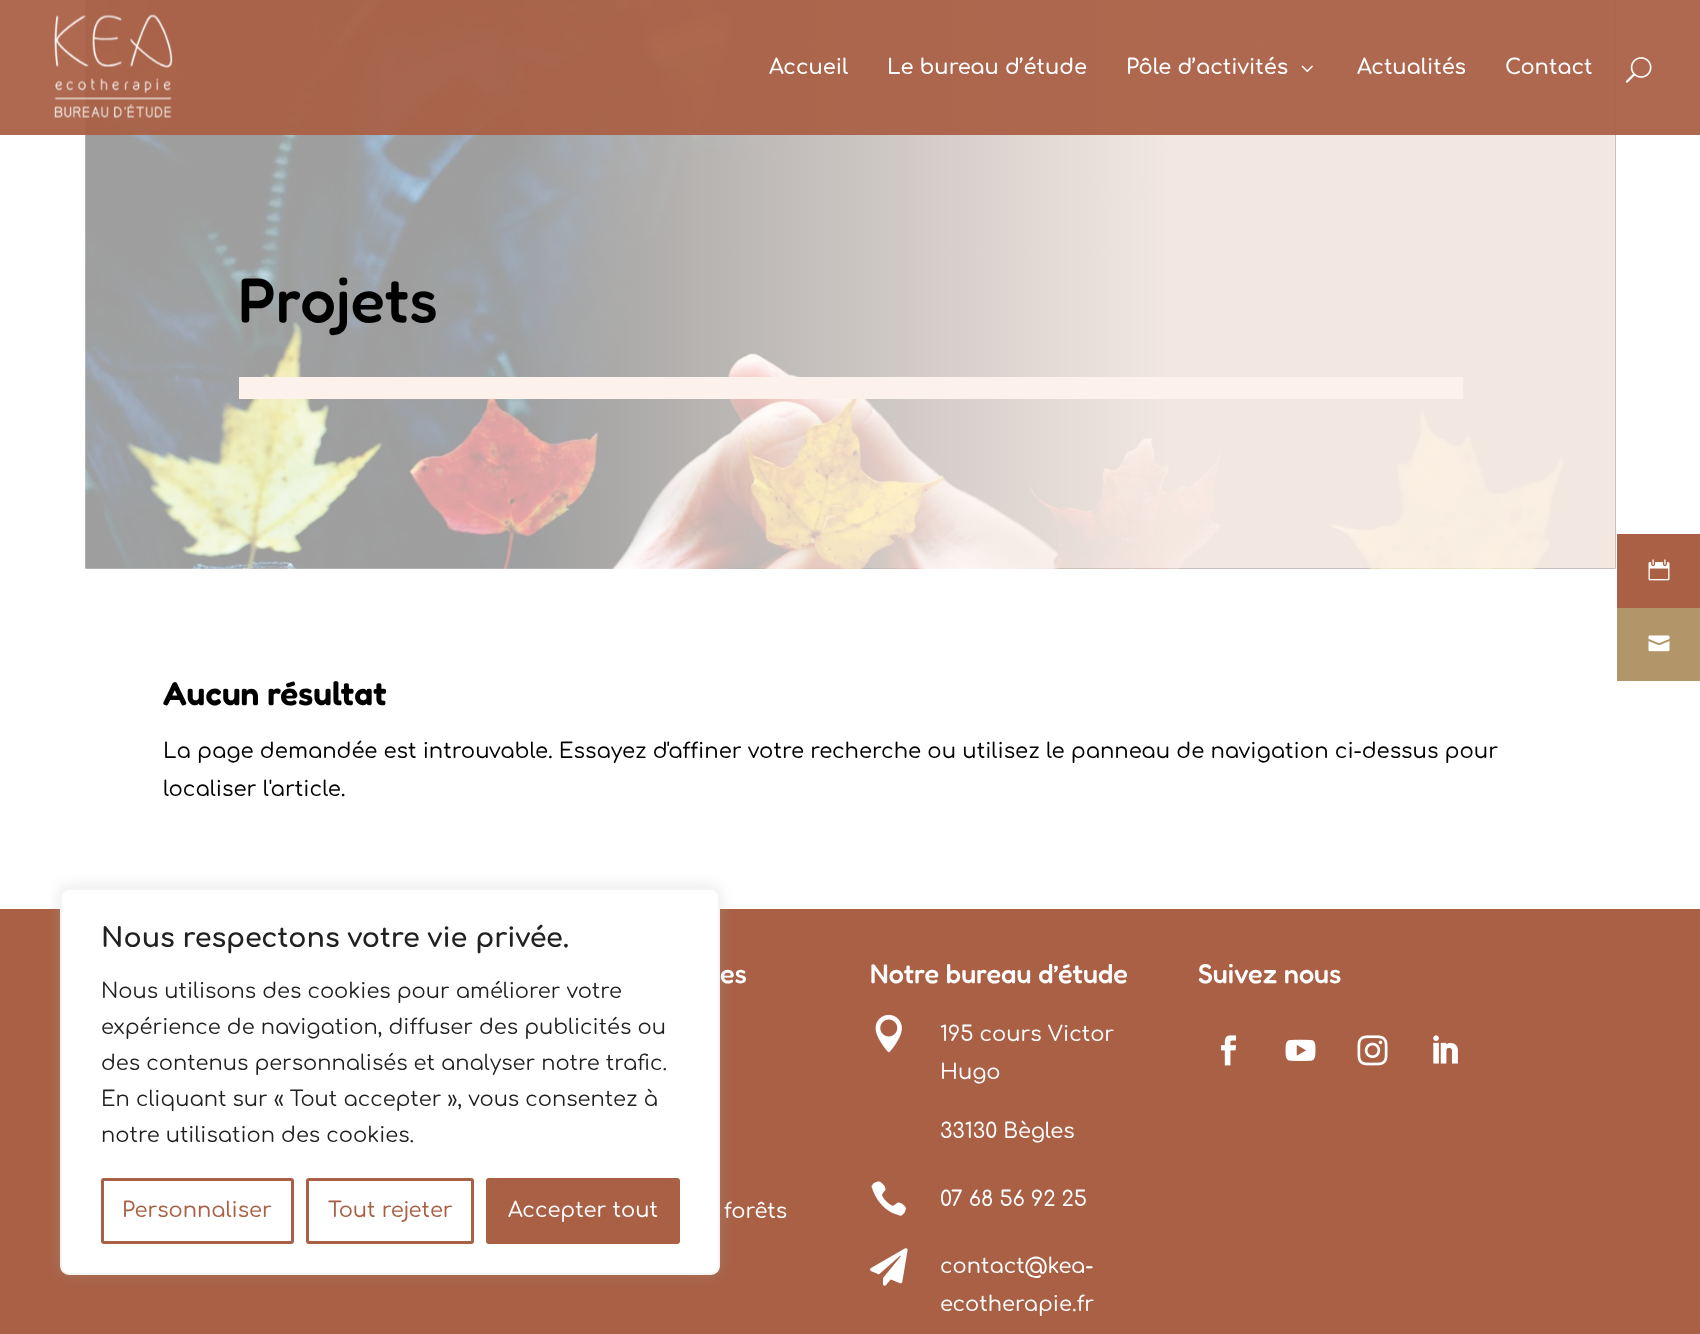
<svg xmlns="http://www.w3.org/2000/svg" width="1700" height="1334">
	<rect width="100%" height="100%" fill="#FFFFFF" />
	<image x="85" y="0" width="1531" height="569" href="assets/img4.png" />
	<rect x="0" y="0" width="1700" height="135" fill="#A96045" fill-opacity="0.94" />
	<image x="54" y="14" width="119" height="104" href="assets/img1.png" />
	<g font-family="Comfortaa" font-size="21" font-weight="600" fill="#FFFFFF">
		<text x="769" y="74">Accueil</text>
		<text x="887" y="74">Le bureau d’étude</text>
		<text x="1126" y="74">Pôle d’activités</text>
	</g>
	<image x="1301" y="65" width="12" height="7" href="assets/img2.png" />
	<g font-family="Comfortaa" font-size="21" font-weight="600" fill="#FFFFFF">
		<text x="1357" y="74">Actualités</text>
		<text x="1505" y="74">Contact</text>
	</g>
	<image x="1625" y="57" width="27" height="26" href="assets/img3.png" />
	<rect x="239" y="377" width="1224" height="22" fill="#FDF2EB" />
	<text x="238" y="322" font-family="Fredoka" font-size="63" font-weight="500" fill="#000000">Projets</text>
	<text x="163" y="705" font-family="Fredoka" font-size="33.25" font-weight="600" fill="#000000">Aucun résultat</text>
	<g font-family="Comfortaa" font-size="21.2" font-weight="500" fill="#000000">
		<text x="163" y="758">La page demandée est introuvable. Essayez d'affiner votre recherche ou utilisez le panneau de navigation ci-dessus pour</text>
		<text x="163" y="796">localiser l'article.</text>
	</g>
	<rect x="1617" y="534" width="83" height="74" fill="#A96045" />
	<image x="1648" y="559" width="22" height="22" href="assets/img5.png" />
	<rect x="1617" y="608" width="83" height="73" fill="#B29568" />
	<image x="1648" y="635" width="22" height="17" href="assets/img6.png" />
	<rect x="0" y="909" width="1700" height="425" fill="#A96045" />
	<text x="720" y="983" font-family="Fredoka" font-size="27" font-weight="500" fill="#FFFFFF">es</text>
	<text x="724" y="1218" font-family="Comfortaa" font-size="21" font-weight="500" fill="#FFFFFF">forêts</text>
	<text x="870" y="983" font-family="Fredoka" font-size="27" font-weight="500" fill="#FFFFFF">Notre bureau d’étude</text>
	<image x="875" y="1014" width="27" height="39" href="assets/img7.png" />
	<g font-family="Comfortaa" font-size="21" font-weight="500" fill="#FFFFFF">
		<text x="940" y="1041">195 cours Victor</text>
		<text x="940" y="1079">Hugo</text>
		<text x="940" y="1138">33130 Bègles</text>
	</g>
	<image x="871" y="1181" width="35" height="35" href="assets/img8.png" />
	<text x="940" y="1206" font-family="Comfortaa" font-size="21" font-weight="500" fill="#FFFFFF">07 68 56 92 25</text>
	<image x="870" y="1248" width="38" height="38" href="assets/img9.png" />
	<g font-family="Comfortaa" font-size="21" font-weight="500" fill="#FFFFFF">
		<text x="940" y="1273">contact@kea-</text>
		<text x="940" y="1311">ecotherapie.fr</text>
	</g>
	<text x="1198" y="983" font-family="Fredoka" font-size="27" font-weight="500" fill="#FFFFFF">Suivez nous</text>
	<image x="1221" y="1035" width="16" height="31" href="assets/img10.png" />
	<image x="1285" y="1039" width="31" height="23" href="assets/img11.png" />
	<image x="1357" y="1035" width="31" height="31" href="assets/img12.png" />
	<image x="1433" y="1035" width="25" height="29" href="assets/img13.png" />
	<rect x="60" y="887" width="660" height="387" rx="9" fill="#ACABAB" fill-opacity="0.3" filter="blur(7.5px)" />
	<rect x="61" y="889" width="658" height="385" rx="8" fill="#FFFFFF" stroke="#F4F4F4" stroke-width="2" />
	<text x="101" y="947" font-family="Comfortaa" font-size="27" font-weight="700" fill="#212121">Nous respectons votre vie privée.</text>
	<g font-family="Comfortaa" font-size="21" fill="#212121">
		<text x="101" y="998">Nous utilisons des cookies pour améliorer votre</text>
		<text x="101" y="1034">expérience de navigation, diffuser des publicités ou</text>
		<text x="101" y="1070">des contenus personnalisés et analyser notre trafic.</text>
		<text x="101" y="1106">En cliquant sur « Tout accepter », vous consentez à</text>
		<text x="101" y="1142">notre utilisation des cookies.</text>
	</g>
	<rect x="102.5" y="1179.5" width="190" height="63" rx="1.5" fill="none" stroke="#A96045" stroke-width="3" />
	<text x="122" y="1217" font-family="Comfortaa" font-size="21" font-weight="500" fill="#A96045">Personnaliser</text>
	<rect x="307.5" y="1179.5" width="165" height="63" rx="1.5" fill="none" stroke="#A96045" stroke-width="3" />
	<text x="328" y="1217" font-family="Comfortaa" font-size="21" font-weight="500" fill="#A96045">Tout rejeter</text>
	<rect x="487.5" y="1179.5" width="191" height="63" rx="1.5" fill="#A96045" stroke="#A96045" stroke-width="3" />
	<text x="508" y="1217" font-family="Comfortaa" font-size="21" font-weight="500" fill="#FFFFFF">Accepter tout</text>
</svg>
